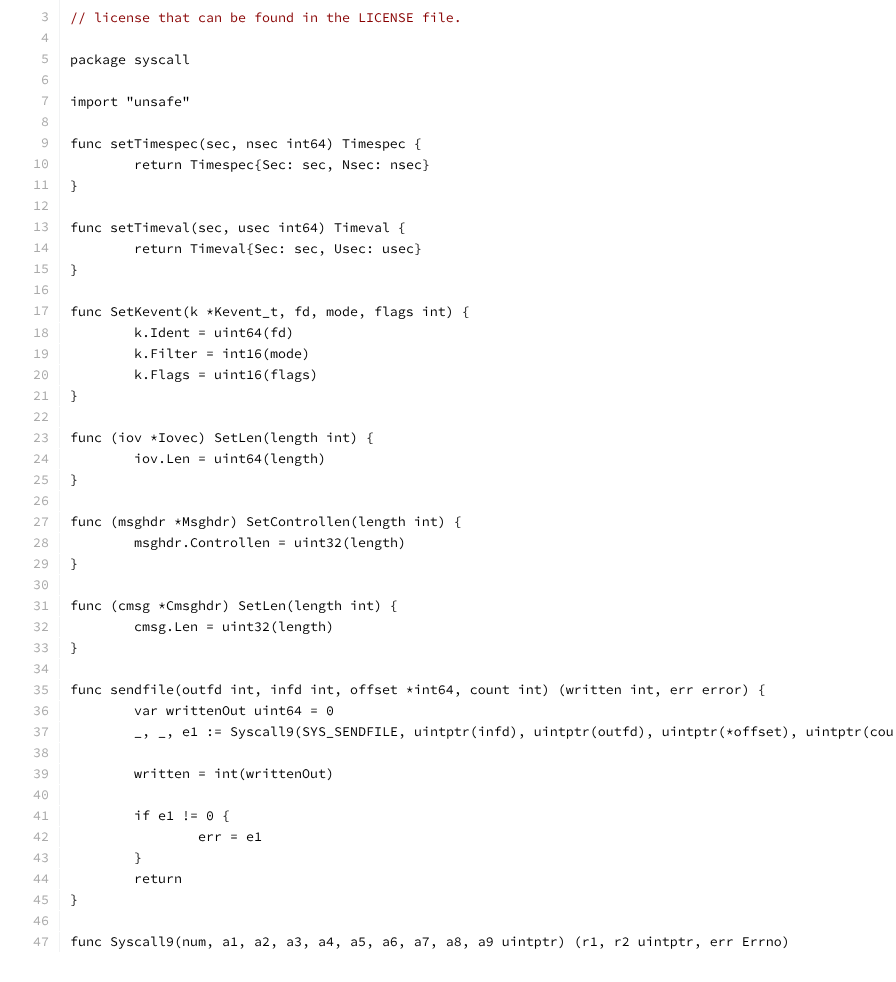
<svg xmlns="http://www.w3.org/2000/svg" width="896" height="982">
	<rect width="100%" height="100%" fill="#FFFFFF" />
	<rect x="59" y="0" width="1" height="322" fill="#F1F2F3" />
	<text x="41" y="21" font-family="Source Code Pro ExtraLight" font-size="13.33" font-weight="200" fill="#AAAAAA">3</text>
	<text x="70" y="22" font-family="Source Code Pro ExtraLight" font-size="13.33" font-weight="200" fill="#880000">// license that can be found in the LICENSE file.</text>
	<g font-family="Source Code Pro ExtraLight" font-size="13.33" font-weight="200" fill="#AAAAAA">
		<text x="41" y="42">4</text>
		<text x="41" y="63">5</text>
	</g>
	<text x="70" y="64" font-family="Source Code Pro ExtraLight" font-size="13.33" font-weight="200" fill="#000000">package syscall</text>
	<g font-family="Source Code Pro ExtraLight" font-size="13.33" font-weight="200" fill="#AAAAAA">
		<text x="41" y="84">6</text>
		<text x="41" y="105">7</text>
	</g>
	<text x="70" y="106" font-family="Source Code Pro ExtraLight" font-size="13.33" font-weight="200" fill="#000000">import "unsafe"</text>
	<g font-family="Source Code Pro ExtraLight" font-size="13.33" font-weight="200" fill="#AAAAAA">
		<text x="41" y="126">8</text>
		<text x="41" y="147">9</text>
	</g>
	<text x="70" y="148" font-family="Source Code Pro ExtraLight" font-size="13.33" font-weight="200" fill="#000000">func setTimespec(sec, nsec int64) Timespec {</text>
	<text x="33" y="168" font-family="Source Code Pro ExtraLight" font-size="13.33" font-weight="200" fill="#AAAAAA">10</text>
	<text x="134" y="169" font-family="Source Code Pro ExtraLight" font-size="13.33" font-weight="200" fill="#000000">return Timespec{Sec: sec, Nsec: nsec}</text>
	<text x="33" y="189" font-family="Source Code Pro ExtraLight" font-size="13.33" font-weight="200" fill="#AAAAAA">11</text>
	<text x="70" y="190" font-family="Source Code Pro ExtraLight" font-size="13.33" font-weight="200" fill="#000000">}</text>
	<g font-family="Source Code Pro ExtraLight" font-size="13.33" font-weight="200" fill="#AAAAAA">
		<text x="33" y="210">12</text>
		<text x="33" y="231">13</text>
	</g>
	<text x="70" y="232" font-family="Source Code Pro ExtraLight" font-size="13.33" font-weight="200" fill="#000000">func setTimeval(sec, usec int64) Timeval {</text>
	<text x="33" y="252" font-family="Source Code Pro ExtraLight" font-size="13.33" font-weight="200" fill="#AAAAAA">14</text>
	<text x="134" y="253" font-family="Source Code Pro ExtraLight" font-size="13.33" font-weight="200" fill="#000000">return Timeval{Sec: sec, Usec: usec}</text>
	<text x="33" y="273" font-family="Source Code Pro ExtraLight" font-size="13.33" font-weight="200" fill="#AAAAAA">15</text>
	<text x="70" y="274" font-family="Source Code Pro ExtraLight" font-size="13.33" font-weight="200" fill="#000000">}</text>
	<g font-family="Source Code Pro ExtraLight" font-size="13.33" font-weight="200" fill="#AAAAAA">
		<text x="33" y="294">16</text>
		<text x="33" y="315">17</text>
	</g>
	<text x="70" y="316" font-family="Source Code Pro ExtraLight" font-size="13.33" font-weight="200" fill="#000000">func SetKevent(k *Kevent_t, fd, mode, flags int) {</text>
	<rect x="59" y="323" width="1" height="20" fill="#F1F2F3" />
	<text x="33" y="337" font-family="Source Code Pro ExtraLight" font-size="13.33" font-weight="200" fill="#AAAAAA">18</text>
	<text x="134" y="337" font-family="Source Code Pro ExtraLight" font-size="13.33" font-weight="200" fill="#000000">k.Ident = uint64(fd)</text>
	<rect x="59" y="344" width="1" height="20" fill="#F1F2F3" />
	<text x="33" y="358" font-family="Source Code Pro ExtraLight" font-size="13.33" font-weight="200" fill="#AAAAAA">19</text>
	<text x="134" y="358" font-family="Source Code Pro ExtraLight" font-size="13.33" font-weight="200" fill="#000000">k.Filter = int16(mode)</text>
	<rect x="59" y="365" width="1" height="20" fill="#F1F2F3" />
	<text x="33" y="379" font-family="Source Code Pro ExtraLight" font-size="13.33" font-weight="200" fill="#AAAAAA">20</text>
	<text x="134" y="379" font-family="Source Code Pro ExtraLight" font-size="13.33" font-weight="200" fill="#000000">k.Flags = uint16(flags)</text>
	<rect x="59" y="386" width="1" height="20" fill="#F1F2F3" />
	<text x="33" y="400" font-family="Source Code Pro ExtraLight" font-size="13.33" font-weight="200" fill="#AAAAAA">21</text>
	<text x="70" y="400" font-family="Source Code Pro ExtraLight" font-size="13.33" font-weight="200" fill="#000000">}</text>
	<rect x="59" y="407" width="1" height="20" fill="#F1F2F3" />
	<text x="33" y="421" font-family="Source Code Pro ExtraLight" font-size="13.33" font-weight="200" fill="#AAAAAA">22</text>
	<rect x="59" y="428" width="1" height="20" fill="#F1F2F3" />
	<text x="33" y="442" font-family="Source Code Pro ExtraLight" font-size="13.33" font-weight="200" fill="#AAAAAA">23</text>
	<text x="70" y="442" font-family="Source Code Pro ExtraLight" font-size="13.33" font-weight="200" fill="#000000">func (iov *Iovec) SetLen(length int) {</text>
	<rect x="59" y="449" width="1" height="20" fill="#F1F2F3" />
	<text x="33" y="463" font-family="Source Code Pro ExtraLight" font-size="13.33" font-weight="200" fill="#AAAAAA">24</text>
	<text x="134" y="463" font-family="Source Code Pro ExtraLight" font-size="13.33" font-weight="200" fill="#000000">iov.Len = uint64(length)</text>
	<rect x="59" y="470" width="1" height="20" fill="#F1F2F3" />
	<text x="33" y="484" font-family="Source Code Pro ExtraLight" font-size="13.33" font-weight="200" fill="#AAAAAA">25</text>
	<text x="70" y="484" font-family="Source Code Pro ExtraLight" font-size="13.33" font-weight="200" fill="#000000">}</text>
	<rect x="59" y="491" width="1" height="20" fill="#F1F2F3" />
	<text x="33" y="505" font-family="Source Code Pro ExtraLight" font-size="13.33" font-weight="200" fill="#AAAAAA">26</text>
	<rect x="59" y="512" width="1" height="20" fill="#F1F2F3" />
	<text x="33" y="526" font-family="Source Code Pro ExtraLight" font-size="13.33" font-weight="200" fill="#AAAAAA">27</text>
	<text x="70" y="526" font-family="Source Code Pro ExtraLight" font-size="13.33" font-weight="200" fill="#000000">func (msghdr *Msghdr) SetControllen(length int) {</text>
	<rect x="59" y="533" width="1" height="20" fill="#F1F2F3" />
	<text x="33" y="547" font-family="Source Code Pro ExtraLight" font-size="13.33" font-weight="200" fill="#AAAAAA">28</text>
	<text x="134" y="547" font-family="Source Code Pro ExtraLight" font-size="13.33" font-weight="200" fill="#000000">msghdr.Controllen = uint32(length)</text>
	<rect x="59" y="554" width="1" height="20" fill="#F1F2F3" />
	<text x="33" y="568" font-family="Source Code Pro ExtraLight" font-size="13.33" font-weight="200" fill="#AAAAAA">29</text>
	<text x="70" y="568" font-family="Source Code Pro ExtraLight" font-size="13.33" font-weight="200" fill="#000000">}</text>
	<rect x="59" y="575" width="1" height="20" fill="#F1F2F3" />
	<text x="33" y="589" font-family="Source Code Pro ExtraLight" font-size="13.33" font-weight="200" fill="#AAAAAA">30</text>
	<rect x="59" y="596" width="1" height="20" fill="#F1F2F3" />
	<text x="33" y="610" font-family="Source Code Pro ExtraLight" font-size="13.33" font-weight="200" fill="#AAAAAA">31</text>
	<text x="70" y="610" font-family="Source Code Pro ExtraLight" font-size="13.33" font-weight="200" fill="#000000">func (cmsg *Cmsghdr) SetLen(length int) {</text>
	<rect x="59" y="617" width="1" height="20" fill="#F1F2F3" />
	<text x="33" y="631" font-family="Source Code Pro ExtraLight" font-size="13.33" font-weight="200" fill="#AAAAAA">32</text>
	<text x="134" y="631" font-family="Source Code Pro ExtraLight" font-size="13.33" font-weight="200" fill="#000000">cmsg.Len = uint32(length)</text>
	<rect x="59" y="638" width="1" height="20" fill="#F1F2F3" />
	<text x="33" y="652" font-family="Source Code Pro ExtraLight" font-size="13.33" font-weight="200" fill="#AAAAAA">33</text>
	<text x="70" y="652" font-family="Source Code Pro ExtraLight" font-size="13.33" font-weight="200" fill="#000000">}</text>
	<rect x="59" y="659" width="1" height="20" fill="#F1F2F3" />
	<text x="33" y="673" font-family="Source Code Pro ExtraLight" font-size="13.33" font-weight="200" fill="#AAAAAA">34</text>
	<rect x="59" y="680" width="1" height="20" fill="#F1F2F3" />
	<text x="33" y="694" font-family="Source Code Pro ExtraLight" font-size="13.33" font-weight="200" fill="#AAAAAA">35</text>
	<text x="70" y="694" font-family="Source Code Pro ExtraLight" font-size="13.33" font-weight="200" fill="#000000">func sendfile(outfd int, infd int, offset *int64, count int) (written int, err error) {</text>
	<rect x="59" y="701" width="1" height="20" fill="#F1F2F3" />
	<text x="33" y="715" font-family="Source Code Pro ExtraLight" font-size="13.33" font-weight="200" fill="#AAAAAA">36</text>
	<text x="134" y="715" font-family="Source Code Pro ExtraLight" font-size="13.33" font-weight="200" fill="#000000">var writtenOut uint64 = 0</text>
	<rect x="59" y="722" width="1" height="20" fill="#F1F2F3" />
	<text x="33" y="736" font-family="Source Code Pro ExtraLight" font-size="13.33" font-weight="200" fill="#AAAAAA">37</text>
	<text x="134" y="736" font-family="Source Code Pro ExtraLight" font-size="13.33" font-weight="200" fill="#000000">_, _, e1 := Syscall9(SYS_SENDFILE, uintptr(infd), uintptr(outfd), uintptr(*offset), uintptr(cou</text>
	<rect x="59" y="743" width="1" height="20" fill="#F1F2F3" />
	<text x="33" y="757" font-family="Source Code Pro ExtraLight" font-size="13.33" font-weight="200" fill="#AAAAAA">38</text>
	<rect x="59" y="764" width="1" height="20" fill="#F1F2F3" />
	<text x="33" y="778" font-family="Source Code Pro ExtraLight" font-size="13.33" font-weight="200" fill="#AAAAAA">39</text>
	<text x="134" y="778" font-family="Source Code Pro ExtraLight" font-size="13.33" font-weight="200" fill="#000000">written = int(writtenOut)</text>
	<rect x="59" y="785" width="1" height="20" fill="#F1F2F3" />
	<text x="33" y="799" font-family="Source Code Pro ExtraLight" font-size="13.33" font-weight="200" fill="#AAAAAA">40</text>
	<rect x="59" y="806" width="1" height="20" fill="#F1F2F3" />
	<text x="33" y="820" font-family="Source Code Pro ExtraLight" font-size="13.33" font-weight="200" fill="#AAAAAA">41</text>
	<text x="134" y="820" font-family="Source Code Pro ExtraLight" font-size="13.33" font-weight="200" fill="#000000">if e1 != 0 {</text>
	<rect x="59" y="827" width="1" height="20" fill="#F1F2F3" />
	<text x="33" y="841" font-family="Source Code Pro ExtraLight" font-size="13.33" font-weight="200" fill="#AAAAAA">42</text>
	<text x="198" y="841" font-family="Source Code Pro ExtraLight" font-size="13.33" font-weight="200" fill="#000000">err = e1</text>
	<rect x="59" y="848" width="1" height="20" fill="#F1F2F3" />
	<text x="33" y="862" font-family="Source Code Pro ExtraLight" font-size="13.33" font-weight="200" fill="#AAAAAA">43</text>
	<text x="134" y="862" font-family="Source Code Pro ExtraLight" font-size="13.33" font-weight="200" fill="#000000">}</text>
	<rect x="59" y="869" width="1" height="20" fill="#F1F2F3" />
	<text x="33" y="883" font-family="Source Code Pro ExtraLight" font-size="13.33" font-weight="200" fill="#AAAAAA">44</text>
	<text x="134" y="883" font-family="Source Code Pro ExtraLight" font-size="13.33" font-weight="200" fill="#000000">return</text>
	<rect x="59" y="890" width="1" height="20" fill="#F1F2F3" />
	<text x="33" y="904" font-family="Source Code Pro ExtraLight" font-size="13.33" font-weight="200" fill="#AAAAAA">45</text>
	<text x="70" y="904" font-family="Source Code Pro ExtraLight" font-size="13.33" font-weight="200" fill="#000000">}</text>
	<rect x="59" y="911" width="1" height="20" fill="#F1F2F3" />
	<text x="33" y="925" font-family="Source Code Pro ExtraLight" font-size="13.33" font-weight="200" fill="#AAAAAA">46</text>
	<rect x="59" y="932" width="1" height="20" fill="#F1F2F3" />
	<text x="33" y="946" font-family="Source Code Pro ExtraLight" font-size="13.33" font-weight="200" fill="#AAAAAA">47</text>
	<text x="70" y="946" font-family="Source Code Pro ExtraLight" font-size="13.33" font-weight="200" fill="#000000">func Syscall9(num, a1, a2, a3, a4, a5, a6, a7, a8, a9 uintptr) (r1, r2 uintptr, err Errno)</text>
</svg>
